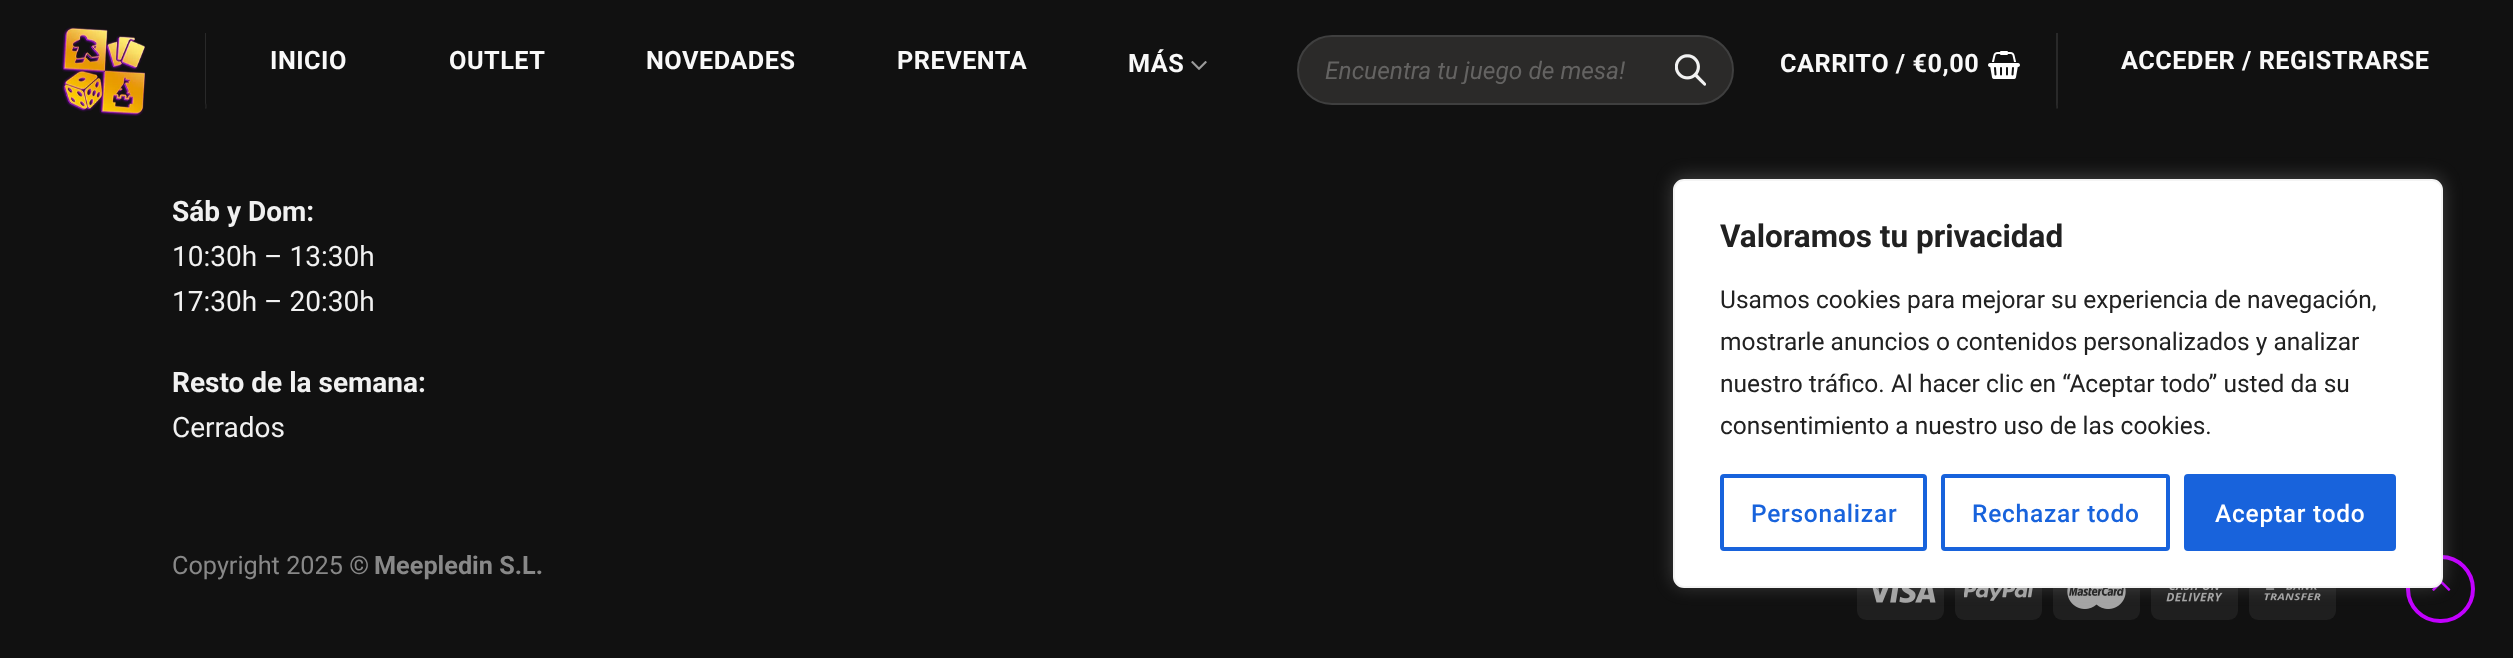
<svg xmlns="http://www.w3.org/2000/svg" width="2513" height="658">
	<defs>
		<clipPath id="clip1"><rect x="1325" y="56" width="381" height="28" /></clipPath>
	</defs>
	<rect width="100%" height="100%" fill="#111111" />
	<image x="61" y="27" width="85" height="89" href="assets/img1.png" />
	<path d="M206.5 108.5H205L206.5 103Z" fill="#292929" />
	<path d="M205 108V33H206V103Z" fill="#292929" />
	<g font-family="Roboto" font-size="25.25" font-weight="700" letter-spacing="0.5" fill="#F9F9F9">
		<text x="270" y="69">INICIO</text>
		<text x="449" y="69">OUTLET</text>
		<text x="646" y="69">NOVEDADES</text>
		<text x="897" y="69">PREVENTA</text>
		<text x="1128" y="72">MÁS</text>
	</g>
	<image x="1191" y="61" width="16" height="9" href="assets/img2.png" />
	<rect x="1298" y="36" width="435" height="68" rx="34" fill="#2B2A29" stroke="#3F3F3F" stroke-width="2" />
	<g clip-path="url(#clip1)">
		<text x="1325" y="79" font-family="Roboto" font-size="24.5" font-style="italic" fill="#646362">Encuentra tu juego de mesa!</text>
	</g>
	<image x="1675" y="54" width="31" height="32" href="assets/img3.png" />
	<text x="1780" y="72" font-family="Roboto" font-size="25.25" font-weight="700" letter-spacing="0.5" fill="#F9F9F9">CARRITO / €0,00</text>
	<image x="1988" y="51" width="32" height="28" href="assets/img4.png" />
	<path d="M2058 108.5H2056L2058 103Z" fill="#292929" />
	<path d="M2056 108V33H2058V103Z" fill="#FFFFFF" fill-opacity="0.1" />
	<text x="2121" y="69" font-family="Roboto" font-size="25.25" font-weight="700" letter-spacing="0.5" fill="#F9F9F9">ACCEDER / REGISTRARSE</text>
	<text x="172" y="221" font-family="Roboto" font-size="28" font-weight="700" fill="#F1F1F1">Sáb y Dom:</text>
	<g font-family="Roboto" font-size="28" fill="#F1F1F1">
		<text x="172" y="266">10:30h – 13:30h</text>
		<text x="172" y="311">17:30h – 20:30h</text>
	</g>
	<text x="172" y="392" font-family="Roboto" font-size="28" font-weight="700" fill="#F1F1F1">Resto de la semana:</text>
	<text x="172" y="437" font-family="Roboto" font-size="28" fill="#F1F1F1">Cerrados</text>
	<text x="172" y="574" font-family="Roboto" font-size="25.25" fill="#888888">Copyright 2025 ©</text>
	<text x="374" y="574" font-family="Roboto" font-size="25.25" font-weight="700" fill="#888888">Meepledin S.L.</text>
	<rect x="1857" y="565" width="87" height="55" rx="9" fill="#1F1F1F" />
	<image x="1872" y="588" width="64" height="15" href="assets/img5.png" />
	<rect x="1955" y="565" width="87" height="55" rx="9" fill="#1F1F1F" />
	<image x="1964" y="588" width="69" height="13" href="assets/img6.png" />
	<rect x="2053" y="565" width="87" height="55" rx="9" fill="#1F1F1F" />
	<image x="2067" y="588" width="59" height="21" href="assets/img7.png" />
	<rect x="2151" y="565" width="87" height="55" rx="9" fill="#1F1F1F" />
	<image x="2166" y="588" width="57" height="14" href="assets/img8.png" />
	<rect x="2249" y="565" width="87" height="55" rx="9" fill="#1F1F1F" />
	<image x="2264" y="588" width="57" height="13" href="assets/img9.png" />
	<rect x="2408" y="557" width="65" height="64" rx="32" fill="none" stroke="#C200FF" stroke-width="4" />
	<image x="2432" y="581" width="19" height="10" href="assets/img10.png" />
	<rect x="1673" y="177" width="770" height="409" rx="11" fill="#ACABAB" fill-opacity="0.3" filter="blur(9px)" />
	<rect x="1674" y="180" width="768" height="407" rx="10" fill="#FFFFFF" stroke="#F4F4F4" stroke-width="2" />
	<text x="1720" y="247" font-family="Roboto" font-size="31.5" font-weight="700" fill="#212121">Valoramos tu privacidad</text>
	<g font-family="Roboto" font-size="24.5" fill="#212121">
		<text x="1720" y="308">Usamos cookies para mejorar su experiencia de navegación,</text>
		<text x="1720" y="350">mostrarle anuncios o contenidos personalizados y analizar</text>
		<text x="1720" y="392">nuestro tráfico. Al hacer clic en “Aceptar todo” usted da su</text>
		<text x="1720" y="434">consentimiento a nuestro uso de las cookies.</text>
	</g>
	<rect x="1722" y="476" width="203" height="73" rx="2" fill="none" stroke="#1863DC" stroke-width="4" />
	<text x="1751" y="522" font-family="Roboto" font-size="24.5" font-weight="500" letter-spacing="0.75" fill="#1863DC">Personalizar</text>
	<rect x="1943" y="476" width="225" height="73" rx="2" fill="none" stroke="#1863DC" stroke-width="4" />
	<text x="1972" y="522" font-family="Roboto" font-size="24.5" font-weight="500" letter-spacing="0.75" fill="#1863DC">Rechazar todo</text>
	<rect x="2186" y="476" width="208" height="73" rx="2" fill="#1863DC" stroke="#1863DC" stroke-width="4" />
	<text x="2215" y="522" font-family="Roboto" font-size="24.5" font-weight="500" letter-spacing="0.75" fill="#FFFFFF">Aceptar todo</text>
</svg>
